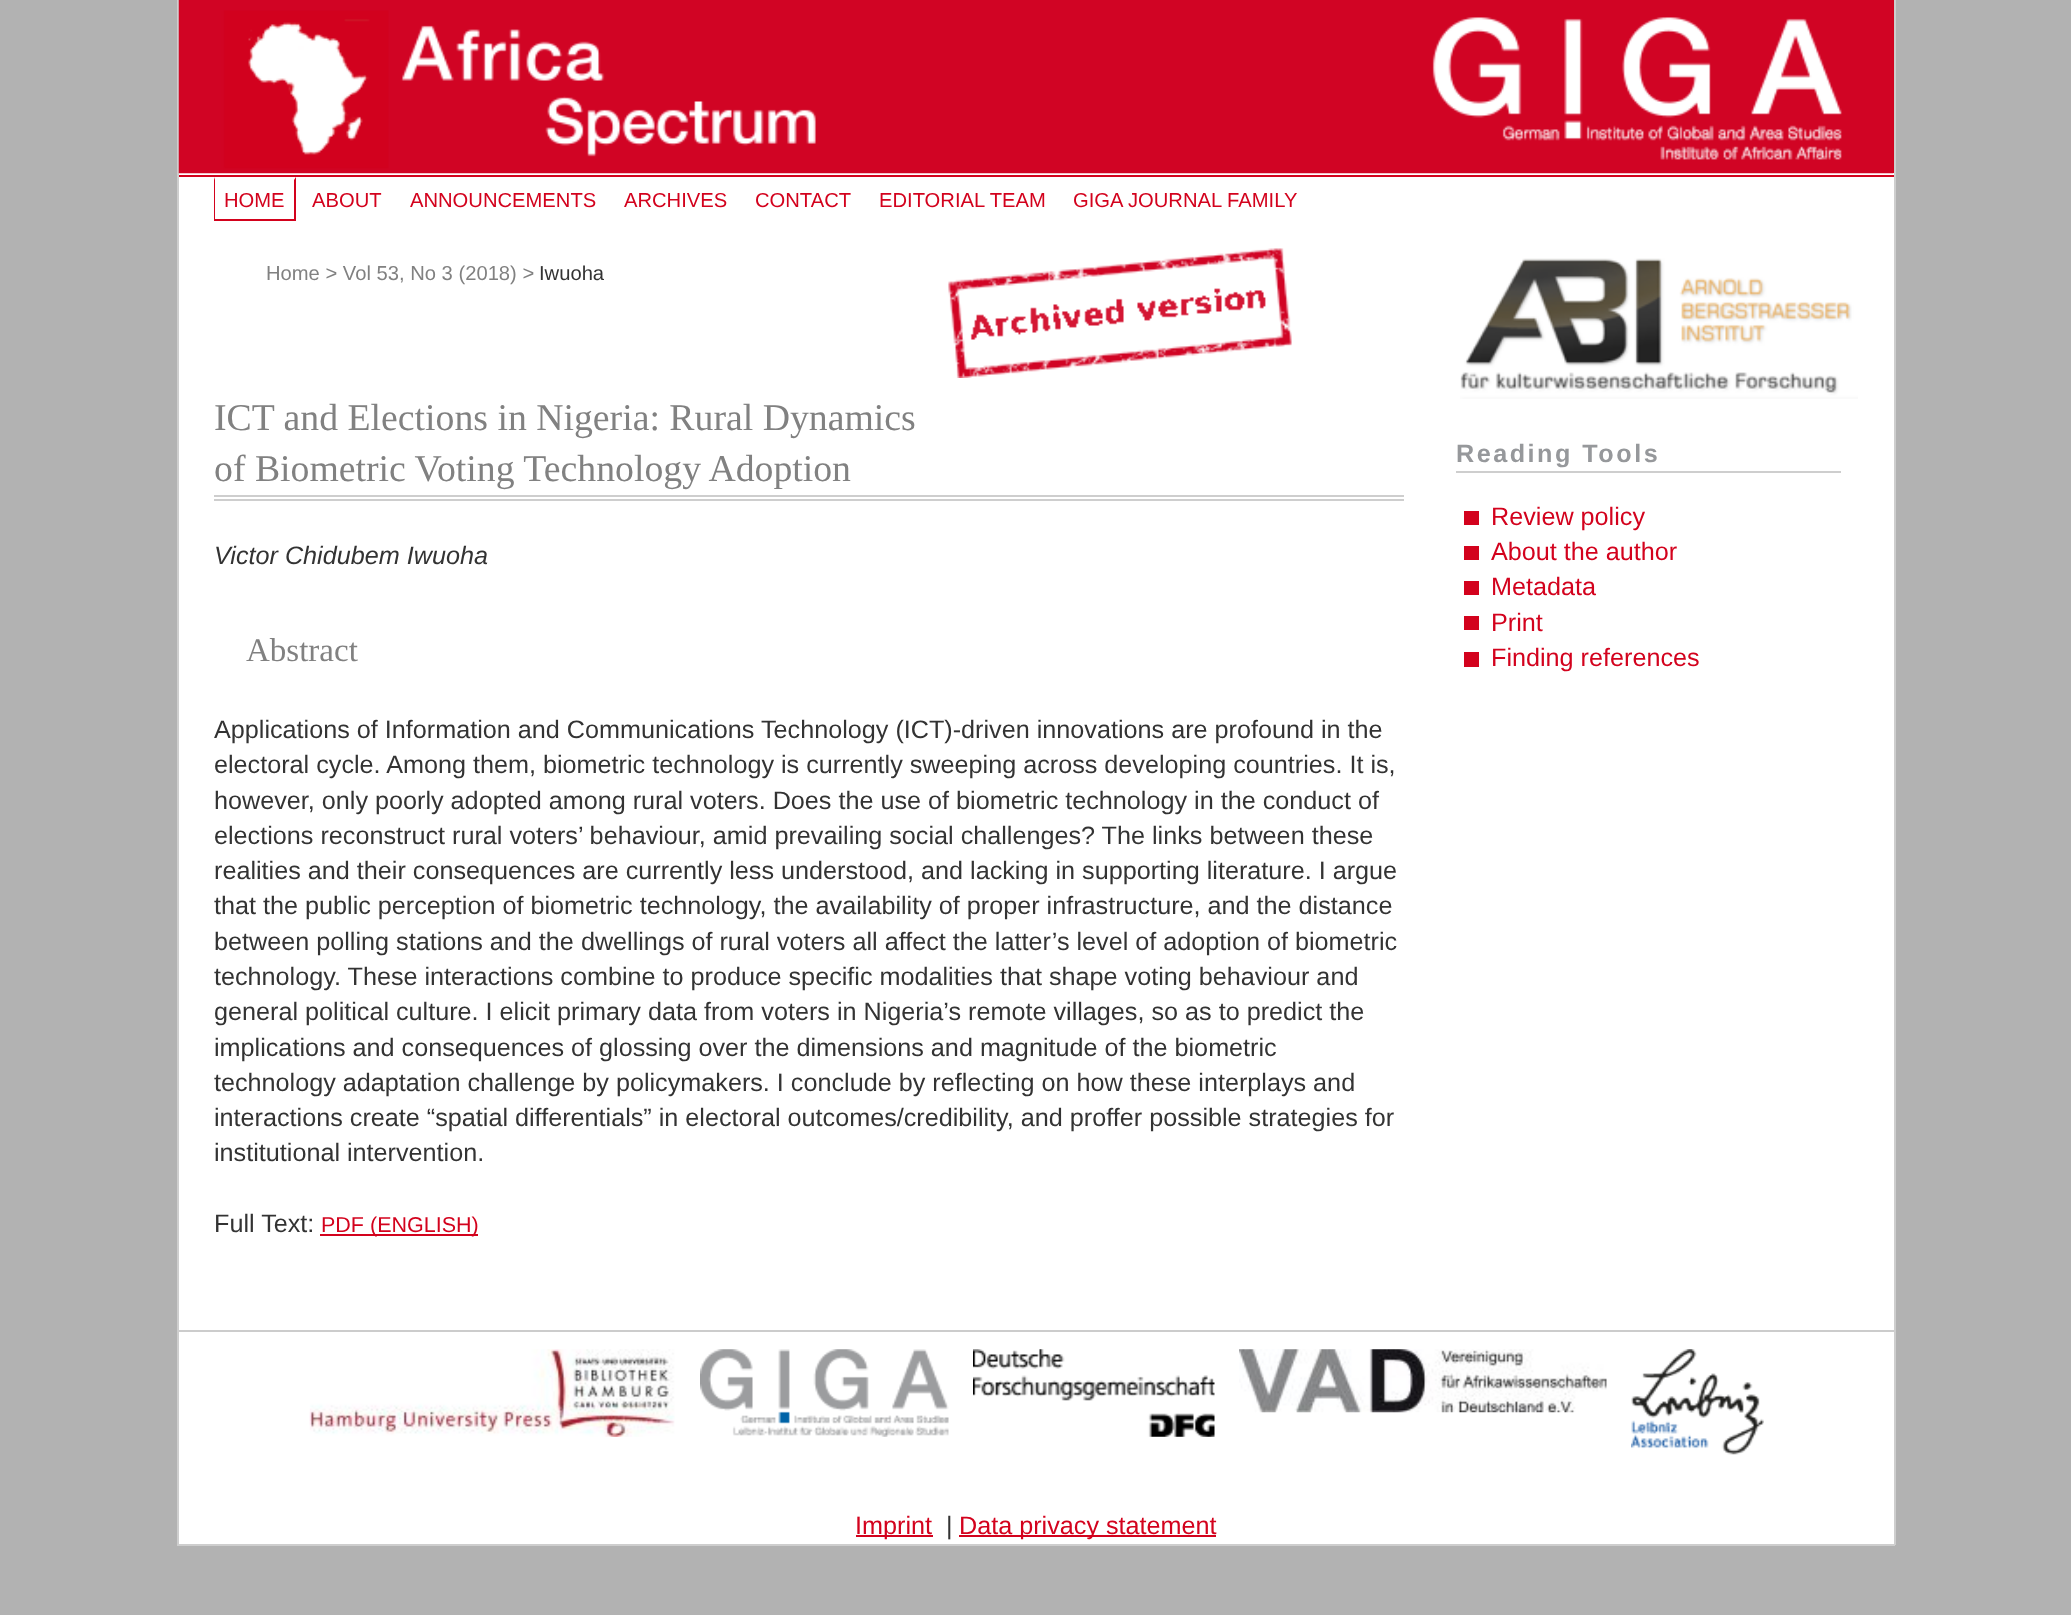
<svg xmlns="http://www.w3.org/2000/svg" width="2071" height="1615">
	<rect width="100%" height="100%" fill="#B2B2B2" />
	<rect x="1893" y="0" width="1" height="173" fill="#D3021D" />
	<rect x="1894" y="0" width="2" height="1545" fill="#CECECE" />
	<rect x="177" y="1544" width="1718" height="2" fill="#CECECE" />
	<rect x="177" y="0" width="2" height="1545" fill="#CECECE" />
	<rect x="179" y="173" width="1715" height="1157" fill="#FFFFFF" />
	<image x="178" y="0" width="1716" height="174" href="assets/img1.png" />
	<image x="1460" y="258" width="398" height="141" href="assets/img2.png" />
	<rect x="179" y="175" width="1715" height="2" fill="#D3021D" />
	<text x="224" y="207" font-family="Liberation Sans" font-size="20.2" fill="#D3021D">HOME</text>
	<path d="M296 177V220L294 219V180Z" fill="#D3021D" />
	<rect x="214" y="219" width="82" height="2" fill="#D3021D" />
	<path d="M214 220V177L215 180V219Z" fill="#D3021D" />
	<g font-family="Liberation Sans" font-size="20.2" fill="#D3021D">
		<text x="312" y="207">ABOUT</text>
		<text x="410" y="207">ANNOUNCEMENTS</text>
		<text x="624" y="207">ARCHIVES</text>
		<text x="755" y="207">CONTACT</text>
		<text x="879" y="207">EDITORIAL TEAM</text>
		<text x="1073" y="207">GIGA JOURNAL FAMILY</text>
	</g>
	<text x="266" y="280" font-family="Liberation Sans" font-size="20.2" fill="#818181">Home &gt; Vol 53, No 3 (2018) &gt;</text>
	<text x="539" y="280" font-family="Liberation Sans" font-size="20.2" fill="#333333">Iwuoha</text>
	<image x="948" y="248" width="344" height="130" href="assets/img3.png" />
	<rect x="214" y="495" width="1190" height="2" fill="#CECECE" />
	<rect x="214" y="499" width="1190" height="2" fill="#CECECE" />
	<g font-family="Liberation Serif" font-size="37.75" fill="#818181">
		<text x="214" y="430">ICT and Elections in Nigeria: Rural Dynamics</text>
		<text x="214" y="481">of Biometric Voting Technology Adoption</text>
	</g>
	<text x="214" y="564" font-family="Liberation Sans" font-size="25.2" font-style="italic" fill="#333333">Victor Chidubem Iwuoha</text>
	<text x="246" y="661" font-family="Liberation Serif" font-size="33" fill="#818181">Abstract</text>
	<g font-family="Liberation Sans" font-size="25.2" fill="#333333">
		<text x="214" y="738">Applications of Information and Communications Technology (ICT)-driven innovations are profound in the</text>
		<text x="214" y="773">electoral cycle. Among them, biometric technology is currently sweeping across developing countries. It is,</text>
		<text x="214" y="809">however, only poorly adopted among rural voters. Does the use of biometric technology in the conduct of</text>
		<text x="214" y="844">elections reconstruct rural voters’ behaviour, amid prevailing social challenges? The links between these</text>
		<text x="214" y="879">realities and their consequences are currently less understood, and lacking in supporting literature. I argue</text>
		<text x="214" y="914">that the public perception of biometric technology, the availability of proper infrastructure, and the distance</text>
		<text x="214" y="950">between polling stations and the dwellings of rural voters all affect the latter’s level of adoption of biometric</text>
		<text x="214" y="985">technology. These interactions combine to produce specific modalities that shape voting behaviour and</text>
		<text x="214" y="1020">general political culture. I elicit primary data from voters in Nigeria’s remote villages, so as to predict the</text>
		<text x="214" y="1056">implications and consequences of glossing over the dimensions and magnitude of the biometric</text>
		<text x="214" y="1091">technology adaptation challenge by policymakers. I conclude by reflecting on how these interplays and</text>
		<text x="214" y="1126">interactions create “spatial differentials” in electoral outcomes/credibility, and proffer possible strategies for</text>
		<text x="214" y="1161">institutional intervention.</text>
		<text x="214" y="1232">Full Text:</text>
	</g>
	<rect x="320" y="1234" width="158" height="2" fill="#D3021D" />
	<text x="321" y="1232" font-family="Liberation Sans" font-size="21.5" fill="#D3021D">PDF (ENGLISH)</text>
	<rect x="1456" y="471" width="385" height="2" fill="#CECECE" />
	<text x="1456" y="462" font-family="Liberation Sans" font-size="25.2" font-weight="700" letter-spacing="2.5" fill="#96989B">Reading Tools</text>
	<rect x="1464" y="511" width="15" height="14" fill="#D3021D" />
	<text x="1491" y="525" font-family="Liberation Sans" font-size="25.2" fill="#D3021D">Review policy</text>
	<rect x="1464" y="546" width="15" height="14" fill="#D3021D" />
	<text x="1491" y="560" font-family="Liberation Sans" font-size="25.2" fill="#D3021D">About the author</text>
	<rect x="1464" y="581" width="15" height="14" fill="#D3021D" />
	<text x="1491" y="595" font-family="Liberation Sans" font-size="25.2" fill="#D3021D">Metadata</text>
	<rect x="1464" y="616" width="15" height="14" fill="#D3021D" />
	<text x="1491" y="631" font-family="Liberation Sans" font-size="25.2" fill="#D3021D">Print</text>
	<rect x="1464" y="652" width="15" height="15" fill="#D3021D" />
	<text x="1491" y="666" font-family="Liberation Sans" font-size="25.2" fill="#D3021D">Finding references</text>
	<rect x="179" y="1332" width="1715" height="212" fill="#FFFFFF" />
	<rect x="179" y="1330" width="1715" height="2" fill="#CCCCCC" />
	<image x="309" y="1349" width="366" height="88" href="assets/img4.png" />
	<image x="700" y="1349" width="249" height="88" href="assets/img5.png" />
	<image x="973" y="1349" width="242" height="88" href="assets/img6.png" />
	<image x="1239" y="1349" width="368" height="64" href="assets/img7.png" />
	<image x="1631" y="1349" width="133" height="106" href="assets/img8.png" />
	<rect x="856" y="1535" width="77" height="2" fill="#D3021D" />
	<text x="855" y="1534" font-family="Liberation Sans" font-size="25.2" fill="#D3021D">Imprint</text>
	<text x="946" y="1534" font-family="Liberation Sans" font-size="25.2" fill="#333333">|</text>
	<rect x="959" y="1535" width="257" height="2" fill="#D3021D" />
	<text x="959" y="1534" font-family="Liberation Sans" font-size="25.2" fill="#D3021D">Data privacy statement</text>
</svg>
